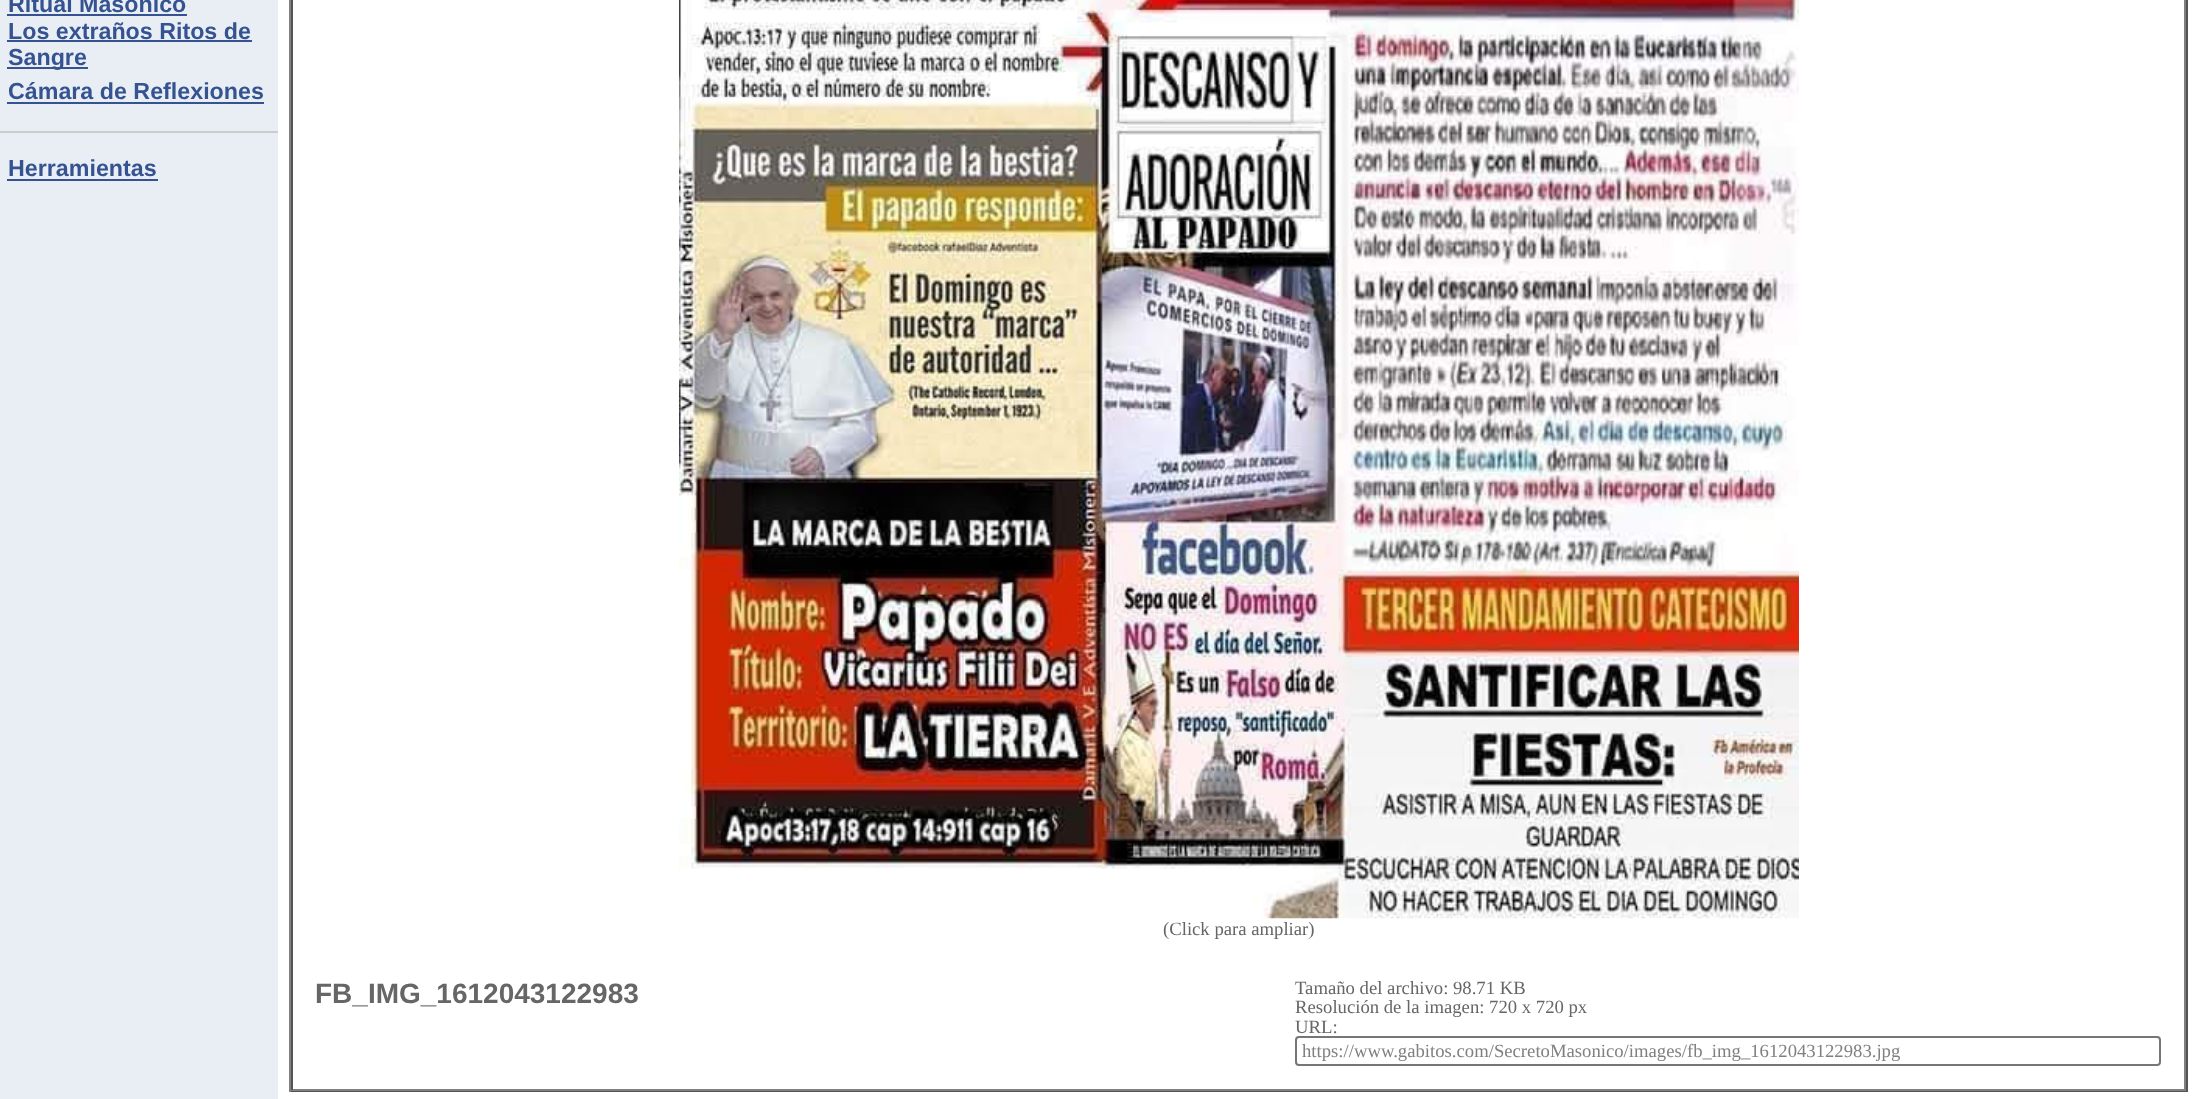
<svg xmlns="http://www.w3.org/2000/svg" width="2198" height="1099">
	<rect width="100%" height="100%" fill="#FFFFFF" />
	<rect x="0" y="0" width="278" height="1099" fill="#E8EEF4" />
	<text x="8" y="12" font-family="Liberation Sans" font-size="23.25" font-weight="700" fill="#365391">Ritual Masónico</text>
	<rect x="7" y="14" width="180" height="2" fill="#365391" />
	<text x="8" y="39" font-family="Liberation Sans" font-size="23.25" font-weight="700" fill="#365391">Los extraños Ritos de</text>
	<rect x="7" y="40" width="245" height="2" fill="#365391" />
	<rect x="7" y="67" width="81" height="2" fill="#365391" />
	<g font-family="Liberation Sans" font-size="23.25" font-weight="700" fill="#365391">
		<text x="8" y="65">Sangre</text>
		<text x="8" y="99">Cámara de Reflexiones</text>
	</g>
	<rect x="7" y="102" width="257" height="2" fill="#365391" />
	<rect x="0" y="131" width="278" height="2" fill="#CCCCCC" />
	<text x="8" y="176" font-family="Liberation Sans" font-size="23.25" font-weight="700" fill="#365391">Herramientas</text>
	<rect x="7" y="179" width="151" height="2" fill="#365391" />
	<rect x="2186" y="0" width="2" height="1092" fill="#555555" />
	<rect x="289" y="1090" width="1899" height="2" fill="#555555" />
	<rect x="289" y="0" width="2" height="1092" fill="#808080" />
	<rect x="2184" y="0" width="2" height="1090" fill="#808080" />
	<rect x="291" y="1089" width="1895" height="2" fill="#808080" />
	<rect x="291" y="0" width="2" height="1090" fill="#555555" />
	<image x="679" y="0" width="1120" height="919" href="assets/img1.png" />
	<text x="1163" y="935" font-family="Liberation Serif" font-size="18.7" fill="#666666">(Click para ampliar)</text>
	<text x="315" y="1003" font-family="Liberation Sans" font-size="28" font-weight="700" fill="#666666">FB_IMG_1612043122983</text>
	<g font-family="Liberation Serif" font-size="18.7" fill="#666666">
		<text x="1295" y="994">Tamaño del archivo: 98.71 KB</text>
		<text x="1295" y="1013">Resolución de la imagen: 720 x 720 px</text>
		<text x="1295" y="1033">URL:</text>
	</g>
	<rect x="1296" y="1037" width="864" height="28" rx="3" fill="none" stroke="#767676" stroke-width="2" />
	<text x="1302" y="1057" font-family="Liberation Serif" font-size="18.7" fill="#808080">https://www.gabitos.com/SecretoMasonico/images/fb_img_1612043122983.jpg</text>
</svg>
